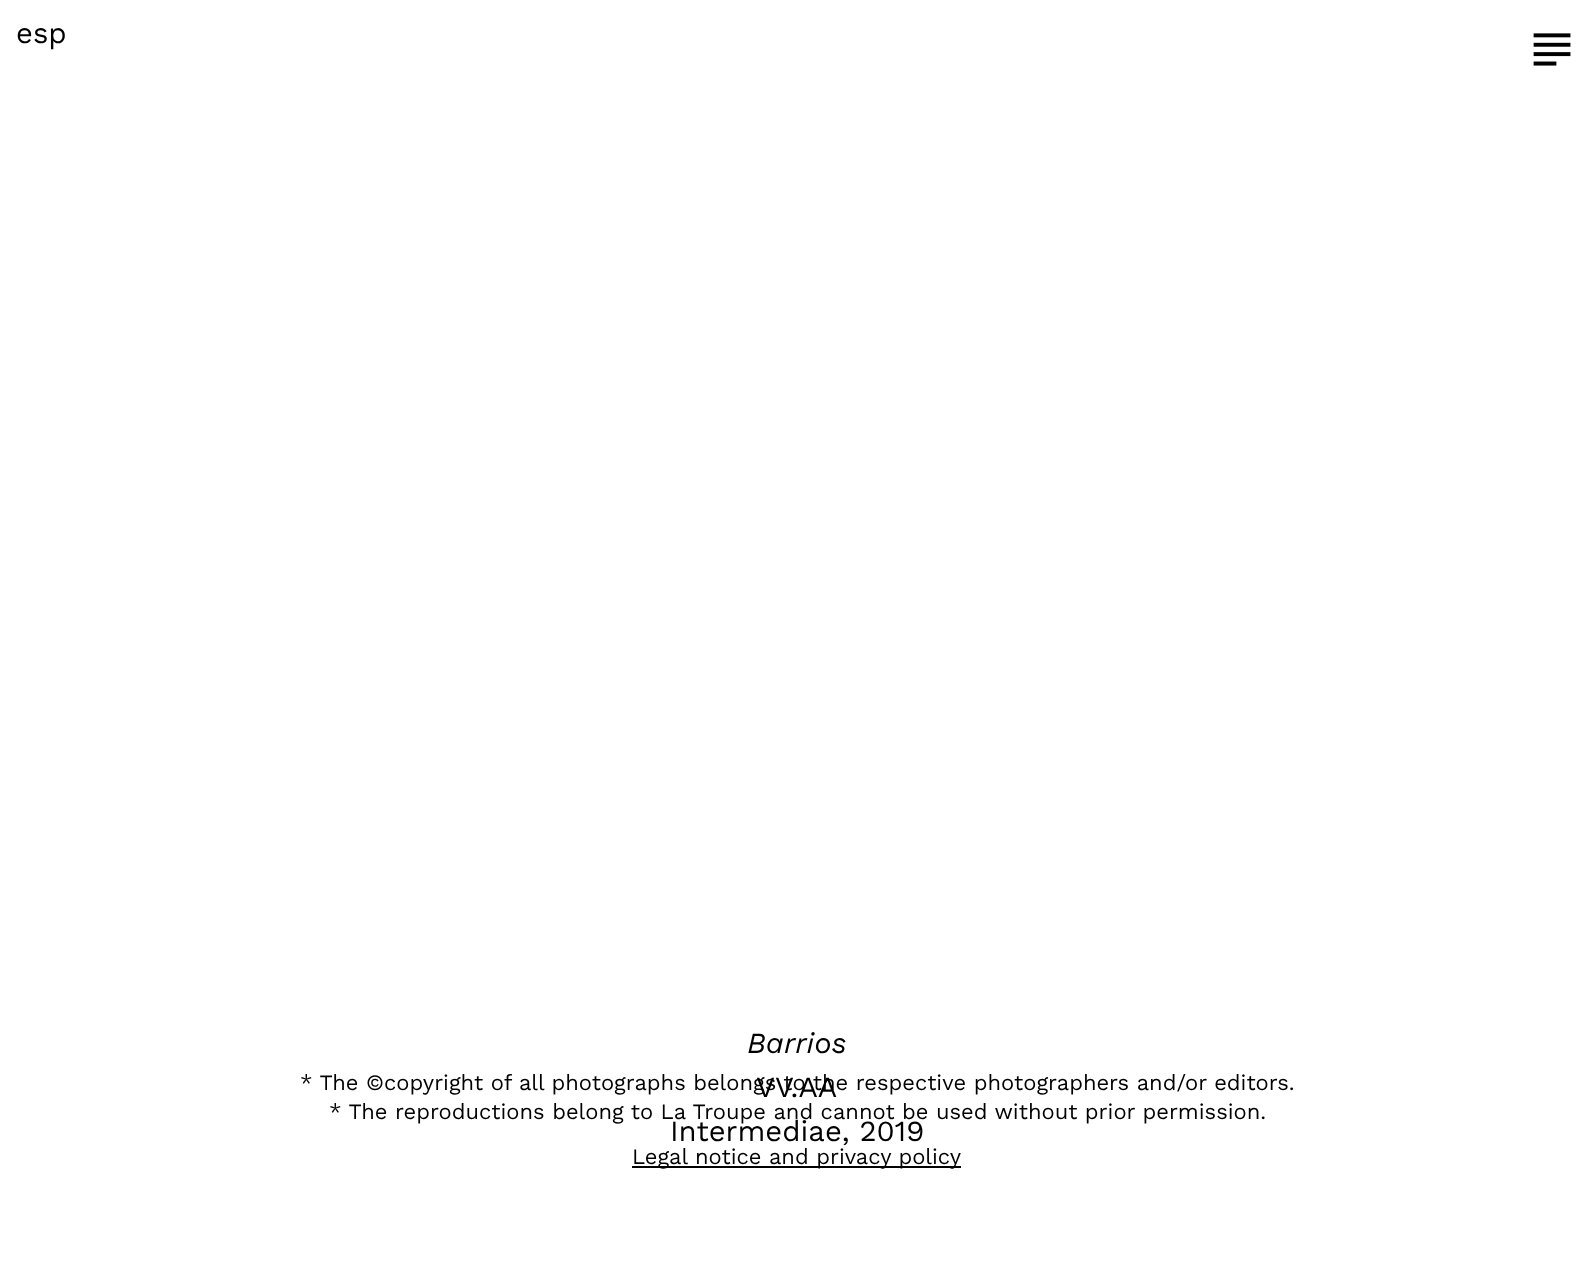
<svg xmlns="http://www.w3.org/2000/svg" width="1592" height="1268">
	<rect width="100%" height="100%" fill="#FFFFFF" />
	<text x="16" y="43" font-family="Work Sans" font-size="29.25" fill="#000000">esp</text>
	<image x="1533" y="33" width="38" height="33" href="assets/img1.png" />
	<text x="747" y="1053" font-family="Work Sans" font-size="29.25" font-style="italic" fill="#000000">Barrios</text>
	<g font-family="Work Sans" font-size="29.25" fill="#000000">
		<text x="756" y="1097">VV.AA</text>
		<text x="670" y="1141">Intermediae, 2019</text>
	</g>
	<g font-family="Work Sans" font-size="21.95" fill="#000000">
		<text x="300" y="1090">* The ©copyright of all photographs belongs to the respective photographers and/or editors.</text>
		<text x="329" y="1119">* The reproductions belong to La Troupe and cannot be used without prior permission.</text>
	</g>
	<rect x="632" y="1166" width="329" height="2" fill="#000000" />
	<text x="632" y="1164" font-family="Work Sans" font-size="21.95" fill="#000000">Legal notice and privacy policy</text>
</svg>
